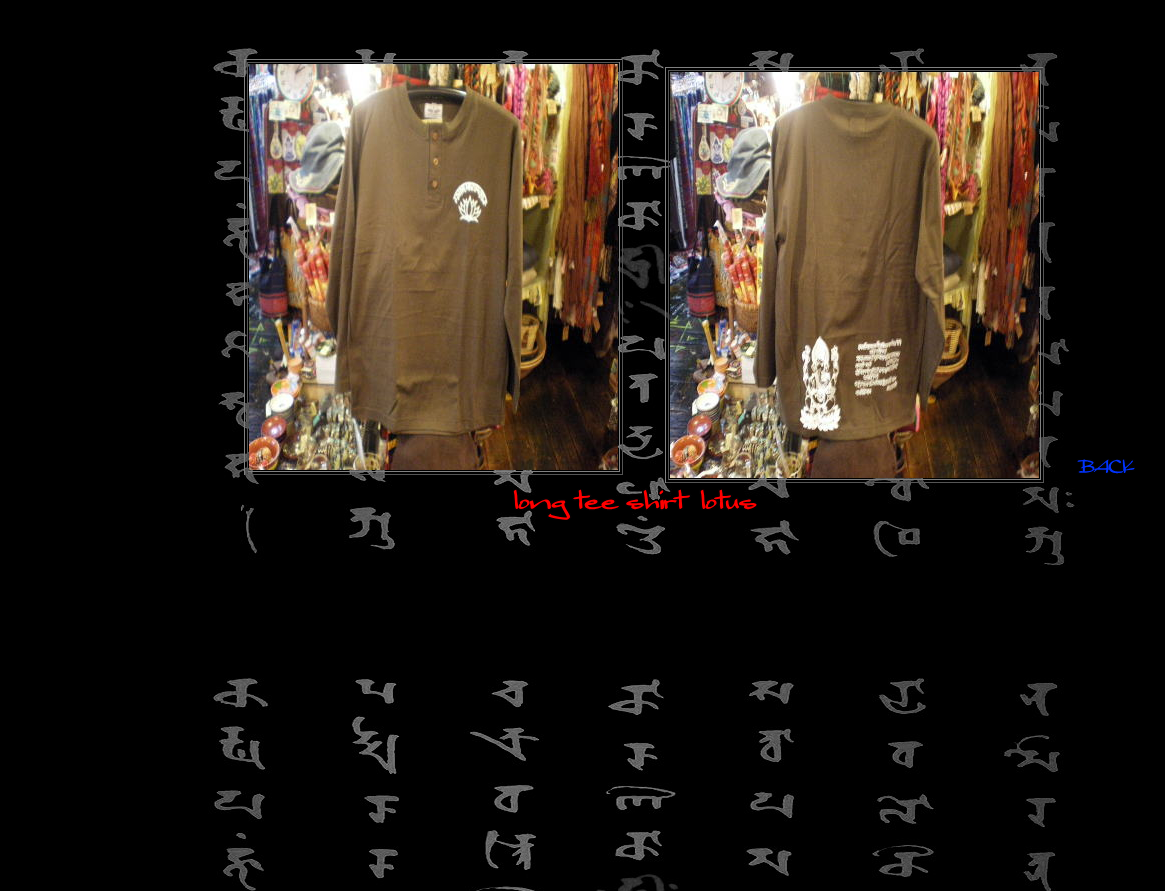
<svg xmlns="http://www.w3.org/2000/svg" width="1165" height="891">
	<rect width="100%" height="100%" fill="#FFFFFF" />
	<image x="0" y="0" width="1165" height="891" href="assets/img1.png" />
	<rect x="244" y="59" width="379" height="1" fill="#808080" />
	<rect x="622" y="59" width="1" height="416" fill="#555555" />
	<rect x="244" y="474" width="379" height="1" fill="#555555" />
	<rect x="244" y="59" width="1" height="416" fill="#808080" />
	<rect x="247" y="62" width="373" height="1" fill="#555555" />
	<rect x="619" y="62" width="1" height="410" fill="#808080" />
	<rect x="247" y="471" width="373" height="1" fill="#808080" />
	<rect x="247" y="62" width="1" height="410" fill="#555555" />
	<image x="249" y="64" width="369" height="406" href="assets/img2.png" />
	<rect x="665" y="67" width="379" height="1" fill="#808080" />
	<rect x="1043" y="67" width="1" height="416" fill="#555555" />
	<rect x="665" y="482" width="379" height="1" fill="#555555" />
	<rect x="665" y="67" width="1" height="416" fill="#808080" />
	<rect x="668" y="70" width="373" height="1" fill="#555555" />
	<rect x="1040" y="70" width="1" height="410" fill="#808080" />
	<rect x="668" y="479" width="373" height="1" fill="#808080" />
	<rect x="668" y="70" width="1" height="410" fill="#555555" />
	<image x="670" y="72" width="369" height="406" href="assets/img3.png" />
	<image x="1077" y="459" width="58" height="15" href="assets/img4.png" />
	<image x="513" y="489" width="244" height="31" href="assets/img5.png" />
</svg>
